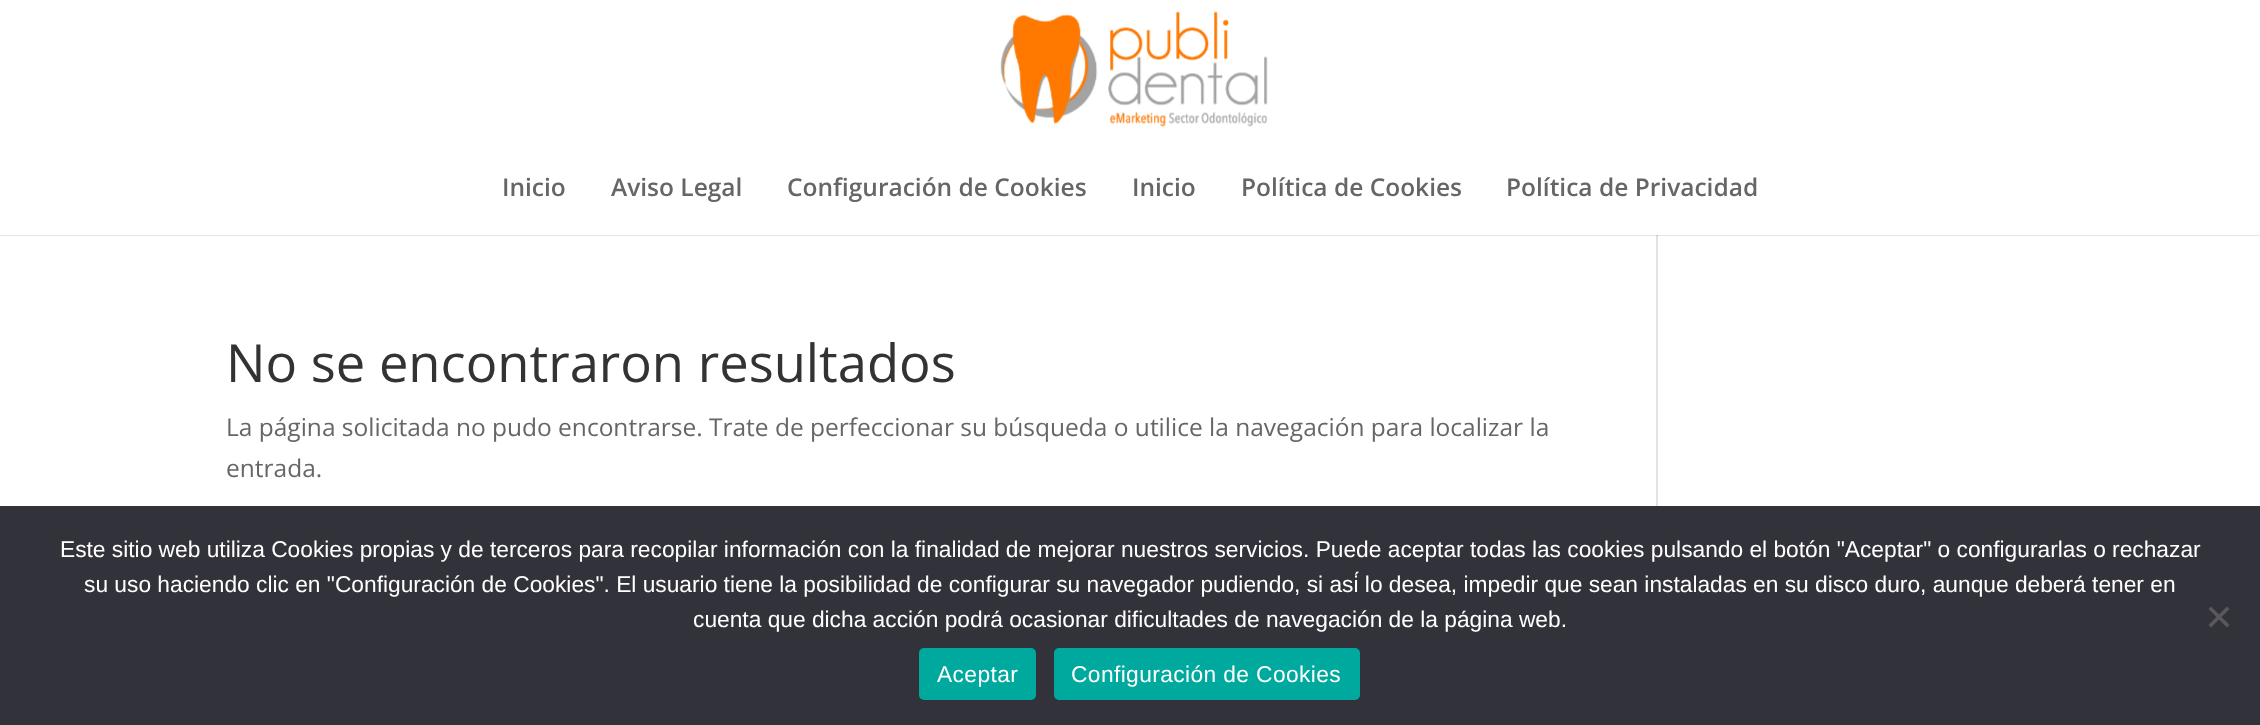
<svg xmlns="http://www.w3.org/2000/svg" width="2260" height="725">
	<rect width="100%" height="100%" fill="#FFFFFF" />
	<rect x="0" y="235" width="2260" height="1" fill="#E6E6E6" />
	<image x="1000" y="11" width="268" height="116" href="assets/img1.png" />
	<g font-family="Open Sans" font-size="24.5" font-weight="600" fill="#666666">
		<text x="502" y="196">Inicio</text>
		<text x="611" y="196">Aviso Legal</text>
		<text x="787" y="196">Configuración de Cookies</text>
		<text x="1132" y="196">Inicio</text>
		<text x="1241" y="196">Política de Cookies</text>
		<text x="1506" y="196">Política de Privacidad</text>
	</g>
	<text x="226" y="382" font-family="Open Sans" font-size="52.5" fill="#333333">No se encontraron resultados</text>
	<g font-family="Open Sans" font-size="24.5" fill="#666666">
		<text x="226" y="436">La página solicitada no pudo encontrarse. Trate de perfeccionar su búsqueda o utilice la navegación para localizar la</text>
		<text x="226" y="477">entrada.</text>
	</g>
	<rect x="1656" y="235" width="2" height="271" fill="#E2E2E2" />
	<rect x="1656" y="235" width="2" height="1" fill="#CBCBCB" />
	<rect x="0" y="506" width="2260" height="219" fill="#32323A" />
	<g font-family="Liberation Sans" font-size="22.75" fill="#FFFFFF">
		<text x="60" y="557">Este sitio web utiliza Cookies propias y de terceros para recopilar información con la finalidad de mejorar nuestros servicios. Puede aceptar todas las cookies pulsando el botón "Aceptar" o configurarlas o rechazar</text>
		<text x="84" y="592">su uso haciendo clic en "Configuración de Cookies". El usuario tiene la posibilidad de configurar su navegador pudiendo, si así lo desea, impedir que sean instaladas en su disco duro, aunque deberá tener en</text>
		<text x="693" y="627">cuenta que dicha acción podrá ocasionar dificultades de navegación de la página web.</text>
	</g>
	<path d="M2227 606.5L2229.5 609L2211 627.5L2208.5 625Z" fill="#59595D" />
	<path d="M2208.5 609L2211 606.5L2229.5 625L2227 627.5Z" fill="#59595D" />
	<rect x="919" y="648" width="117" height="52" rx="5" fill="#00A99D" />
	<text x="937" y="682" font-family="Liberation Sans" font-size="22.75" letter-spacing="0.4" fill="#FFFFFF">Aceptar</text>
	<rect x="1054" y="648" width="306" height="52" rx="5" fill="#00A99D" />
	<text x="1071" y="682" font-family="Liberation Sans" font-size="22.75" letter-spacing="0.4" fill="#FFFFFF">Configuración de Cookies</text>
</svg>
